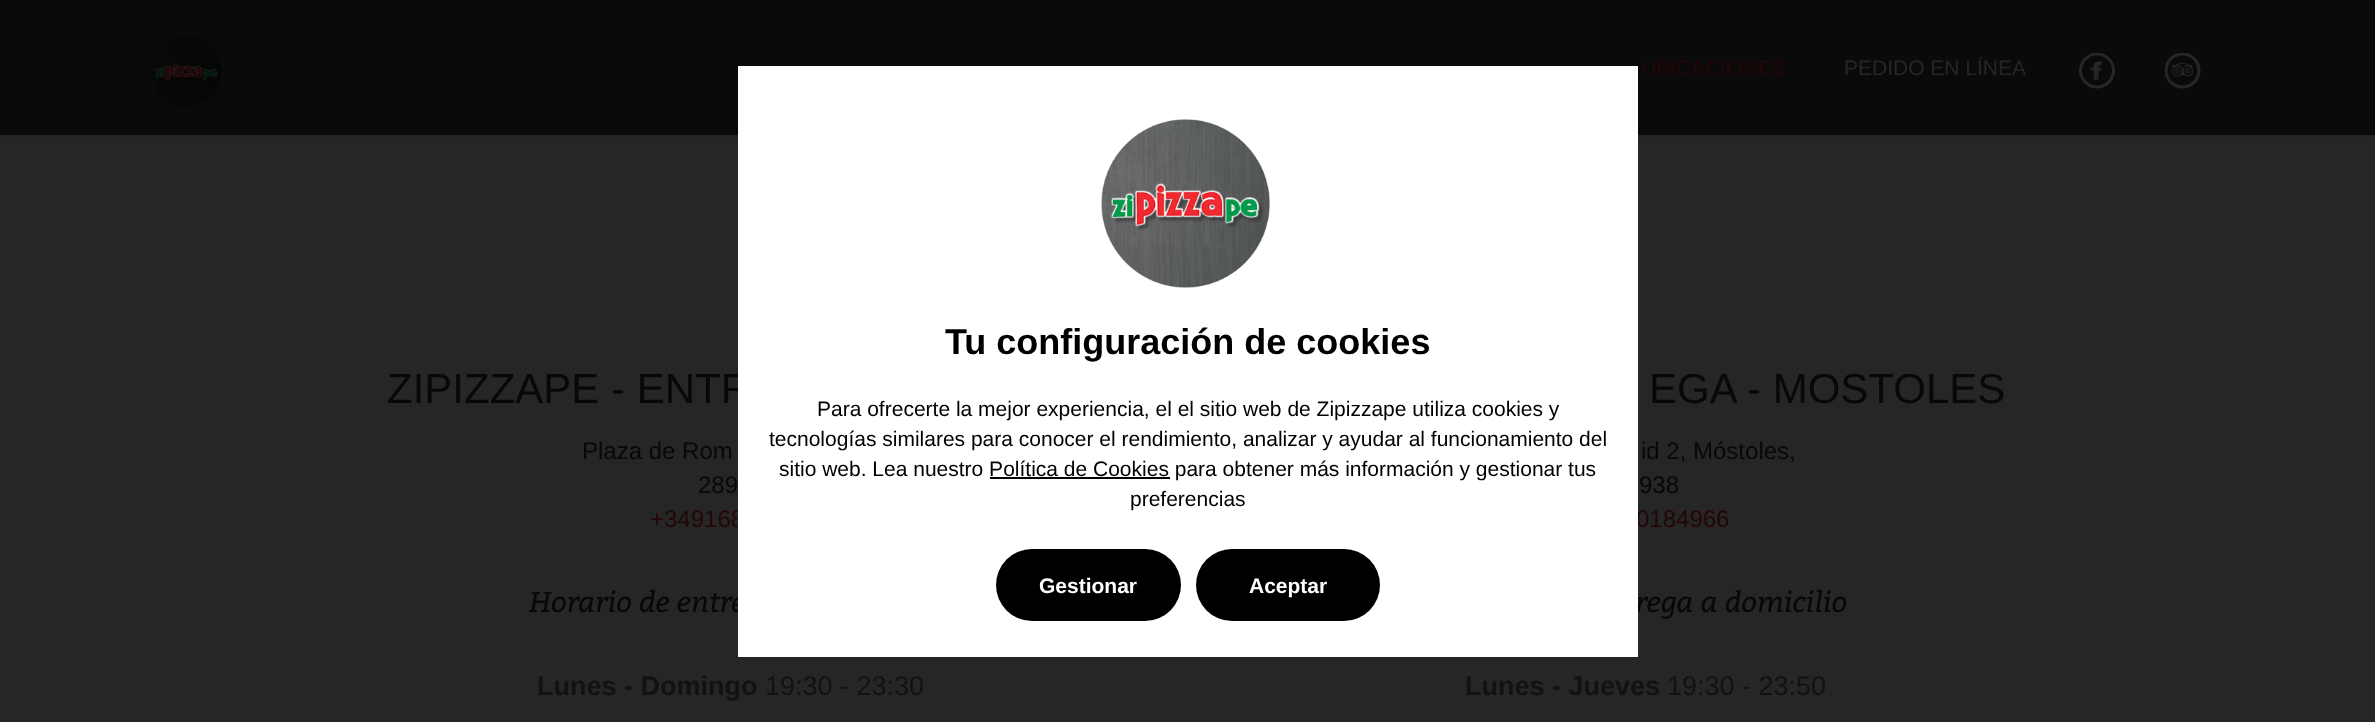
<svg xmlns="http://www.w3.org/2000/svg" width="2375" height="722">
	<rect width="100%" height="100%" fill="#262626" />
	<path d="M2 135V137H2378V2H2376V135Z" fill="#222222" />
	<rect x="0" y="0" width="2375" height="135" fill="#0A0A0A" />
	<image x="151" y="36" width="71" height="71" href="assets/img1.png" />
	<text x="1641" y="75" font-family="Liberation Sans" font-size="21" fill="#240607">UBICACIONES</text>
	<text x="1844" y="75" font-family="Liberation Sans" font-size="21" fill="#262626">PEDIDO EN LÍNEA</text>
	<image x="2079" y="53" width="36" height="36" href="assets/img2.png" />
	<image x="2165" y="53" width="36" height="36" href="assets/img3.png" />
	<text x="387" y="403" font-family="Liberation Sans" font-size="42" fill="#080808">ZIPIZZAPE - ENTR</text>
	<g font-family="Liberation Sans" font-size="24" fill="#080808">
		<text x="582" y="459">Plaza de Rom</text>
		<text x="698" y="493">289</text>
	</g>
	<text x="650" y="527" font-family="Liberation Sans" font-size="24" fill="#240607">+349168</text>
	<text x="529" y="612" font-family="Bitter" font-size="28.5" font-style="italic" fill="#080808">Horario de entre</text>
	<text x="537" y="695" font-family="Liberation Sans" font-size="27" font-weight="700" fill="#131212">Lunes - Domingo</text>
	<text x="765" y="695" font-family="Liberation Sans" font-size="27" fill="#131212">19:30 - 23:30</text>
	<text x="1649" y="403" font-family="Liberation Sans" font-size="42" fill="#080808">EGA - MOSTOLES</text>
	<g font-family="Liberation Sans" font-size="24" fill="#080808">
		<text x="1641" y="459">id 2, Móstoles,</text>
		<text x="1639" y="493">938</text>
	</g>
	<text x="1636" y="527" font-family="Liberation Sans" font-size="24" fill="#240607">0184966</text>
	<text x="1635" y="612" font-family="Bitter" font-size="28.5" font-style="italic" fill="#080808">rega a domicilio</text>
	<text x="1465" y="695" font-family="Liberation Sans" font-size="27" font-weight="700" fill="#131212">Lunes - Jueves</text>
	<text x="1667" y="695" font-family="Liberation Sans" font-size="27" fill="#131212">19:30 - 23:50</text>
	<rect x="738" y="66" width="900" height="591" fill="#FFFFFF" />
	<image x="1101" y="119" width="169" height="169" href="assets/img4.png" />
	<text x="945" y="354" font-family="Liberation Sans" font-size="36" font-weight="700" fill="#000000">Tu configuración de cookies</text>
	<g font-family="Liberation Sans" font-size="21" fill="#000000">
		<text x="817" y="416">Para ofrecerte la mejor experiencia, el el sitio web de Zipizzape utiliza cookies y</text>
		<text x="769" y="446">tecnologías similares para conocer el rendimiento, analizar y ayudar al funcionamiento del</text>
		<text x="779" y="476">sitio web. Lea nuestro Política de Cookies para obtener más información y gestionar tus</text>
	</g>
	<rect x="990" y="477" width="180" height="2" fill="#000000" />
	<text x="1130" y="506" font-family="Liberation Sans" font-size="21" fill="#000000">preferencias</text>
	<rect x="996" y="549" width="185" height="72" rx="36" fill="#000000" />
	<text x="1039" y="593" font-family="Liberation Sans" font-size="21" font-weight="700" fill="#FFFFFF">Gestionar</text>
	<rect x="1196" y="549" width="184" height="72" rx="36" fill="#000000" />
	<text x="1249" y="593" font-family="Liberation Sans" font-size="21" font-weight="700" fill="#FFFFFF">Aceptar</text>
</svg>
